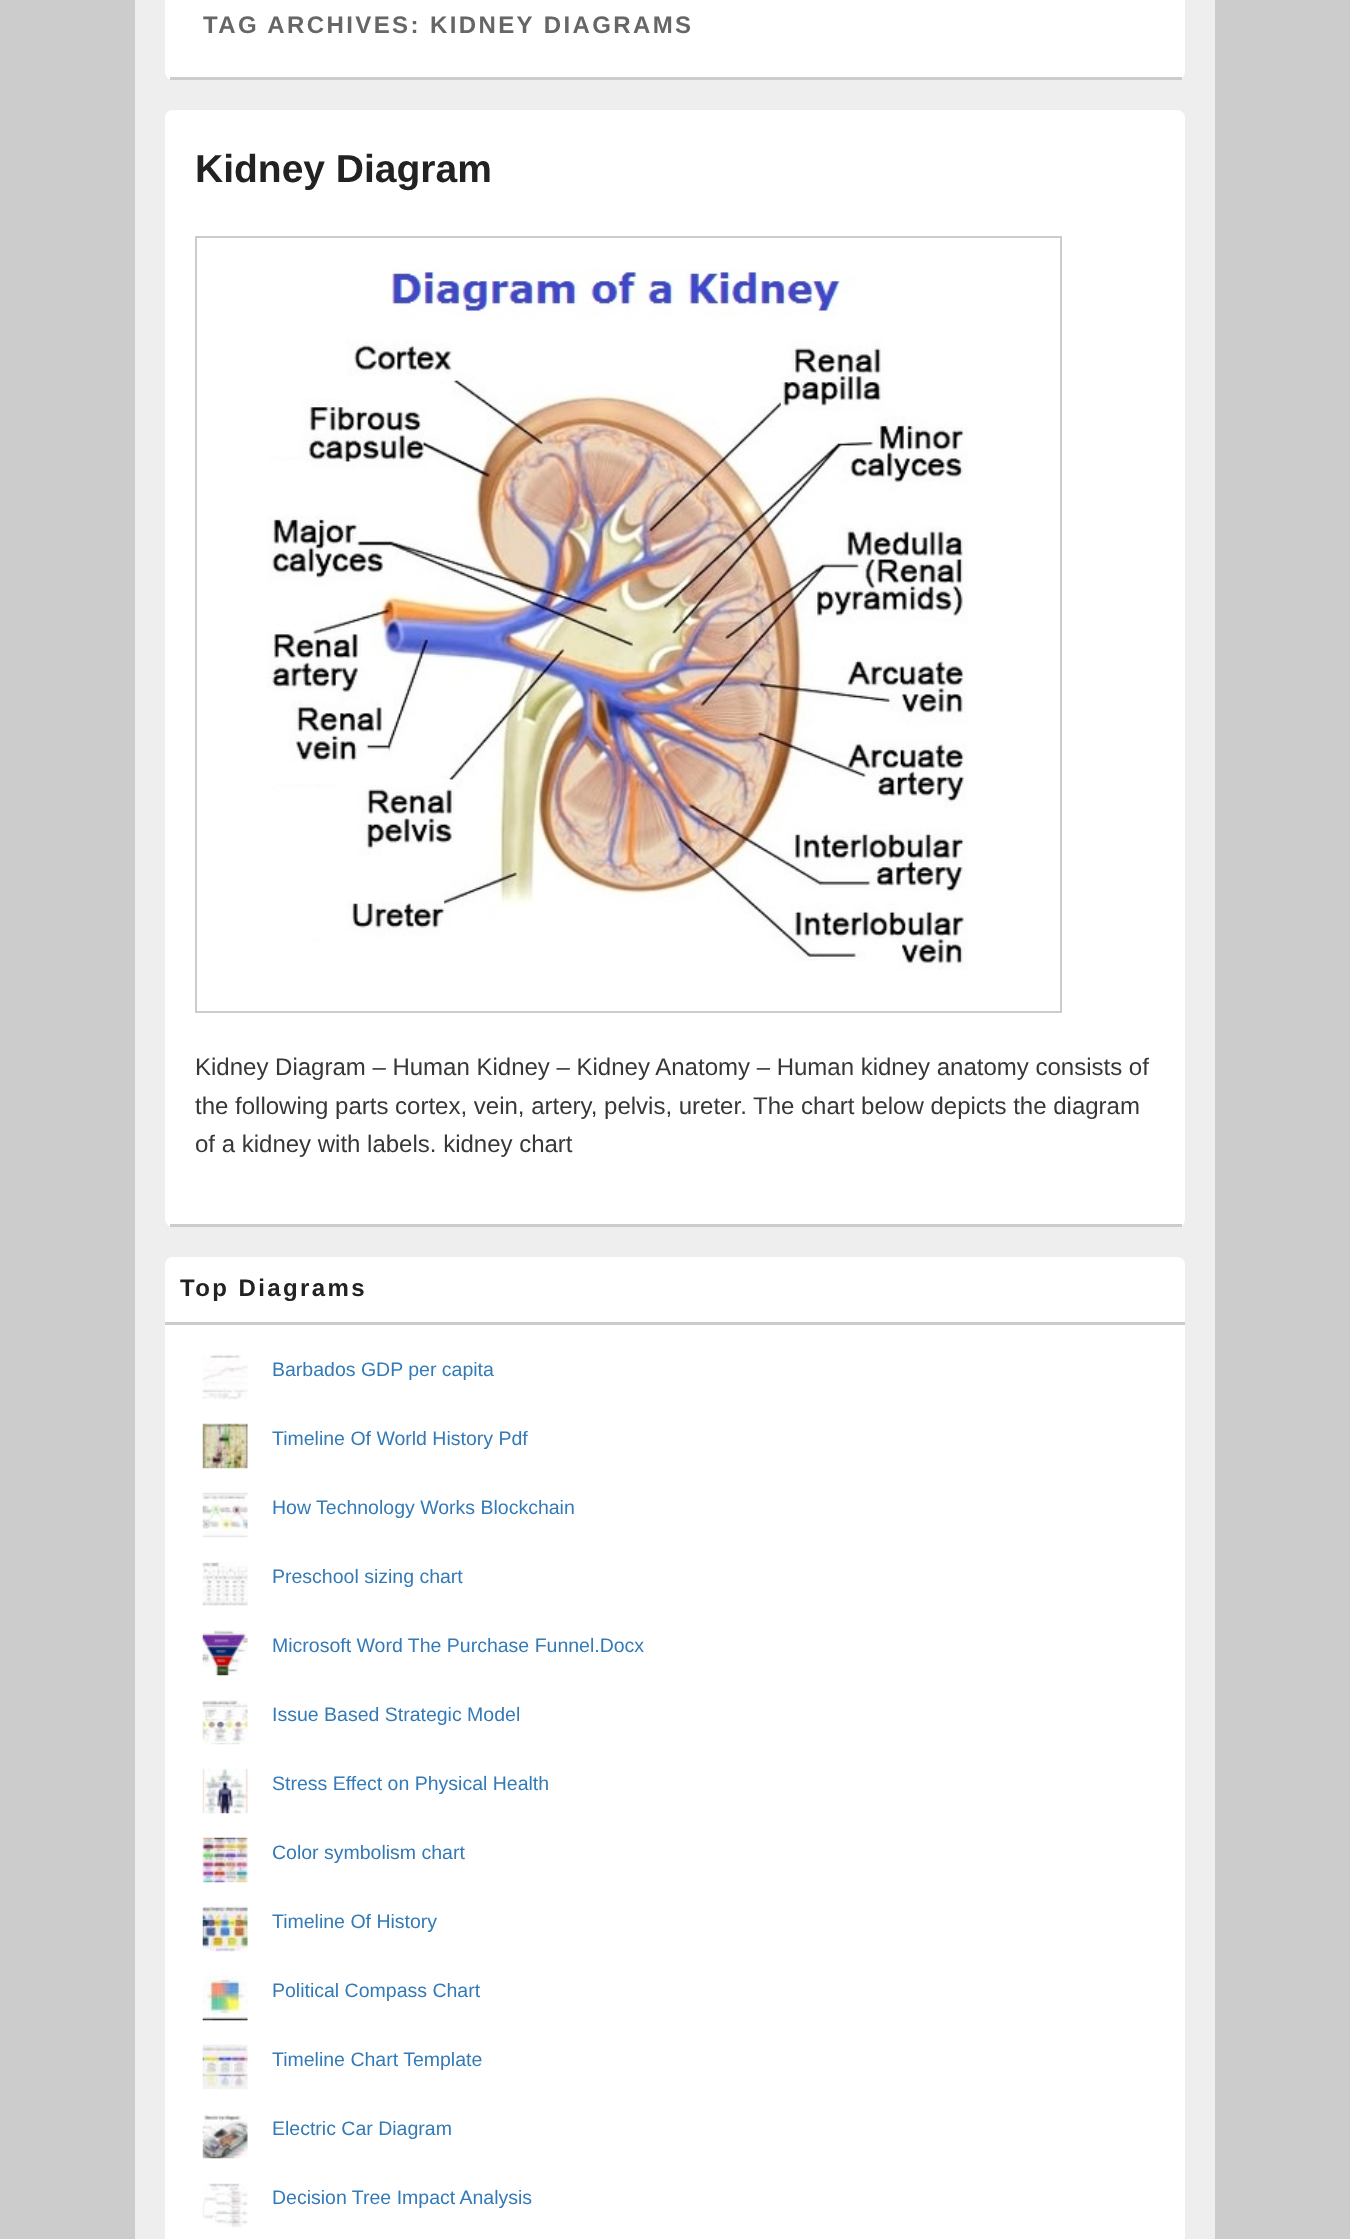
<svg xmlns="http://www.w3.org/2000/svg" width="1350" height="2239">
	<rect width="100%" height="100%" fill="#CCCCCC" />
	<rect x="135" y="0" width="1080" height="2239" fill="#EEEEEE" />
	<rect x="165" y="-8" width="1020" height="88" rx="8" fill="#FFFFFF" />
	<rect x="170" y="77" width="1012" height="3" fill="#CCCCCC" />
	<text x="203" y="33" font-family="Liberation Sans" font-size="24" font-weight="700" letter-spacing="2.4" fill="#666666">TAG ARCHIVES: KIDNEY DIAGRAMS</text>
	<rect x="165" y="110" width="1020" height="1117" rx="8" fill="#FFFFFF" />
	<rect x="170" y="1224" width="1012" height="3" fill="#CCCCCC" />
	<text x="195" y="182" font-family="Liberation Sans" font-size="39" font-weight="700" fill="#222222">Kidney Diagram</text>
	<rect x="196" y="237" width="865" height="775" fill="none" stroke="#CCCCCC" stroke-width="2" />
	<image x="267" y="269" width="701" height="701" href="assets/img1.png" />
	<g font-family="Liberation Sans" font-size="24" fill="#373737">
		<text x="195" y="1075">Kidney Diagram – Human Kidney – Kidney Anatomy – Human kidney anatomy consists of</text>
		<text x="195" y="1114">the following parts cortex, vein, artery, pelvis, ureter. The chart below depicts the diagram</text>
		<text x="195" y="1152">of a kidney with labels. kidney chart</text>
	</g>
	<rect x="165" y="1257" width="1020" height="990" rx="8" fill="#FFFFFF" />
	<rect x="165" y="1322" width="1020" height="3" fill="#CCCCCC" />
	<text x="180" y="1296" font-family="Liberation Sans" font-size="24" font-weight="700" letter-spacing="2.4" fill="#222222">Top Diagrams</text>
	<image x="202" y="1354" width="46" height="46" href="assets/img2.png" />
	<text x="272" y="1376" font-family="Liberation Sans" font-size="19.5" fill="#337AB7">Barbados GDP per capita</text>
	<image x="202" y="1423" width="46" height="46" href="assets/img3.png" />
	<text x="272" y="1445" font-family="Liberation Sans" font-size="19.5" fill="#337AB7">Timeline Of World History Pdf</text>
	<image x="202" y="1492" width="46" height="46" href="assets/img4.png" />
	<text x="272" y="1514" font-family="Liberation Sans" font-size="19.5" fill="#337AB7">How Technology Works Blockchain</text>
	<image x="202" y="1562" width="46" height="44" href="assets/img5.png" />
	<text x="272" y="1583" font-family="Liberation Sans" font-size="19.5" fill="#337AB7">Preschool sizing chart</text>
	<image x="202" y="1630" width="46" height="46" href="assets/img6.png" />
	<text x="272" y="1652" font-family="Liberation Sans" font-size="19.5" fill="#337AB7">Microsoft Word The Purchase Funnel.Docx</text>
	<image x="202" y="1700" width="46" height="45" href="assets/img7.png" />
	<text x="272" y="1721" font-family="Liberation Sans" font-size="19.5" fill="#337AB7">Issue Based Strategic Model</text>
	<image x="202" y="1768" width="46" height="46" href="assets/img8.png" />
	<text x="272" y="1790" font-family="Liberation Sans" font-size="19.5" fill="#337AB7">Stress Effect on Physical Health</text>
	<image x="202" y="1837" width="46" height="46" href="assets/img9.png" />
	<text x="272" y="1859" font-family="Liberation Sans" font-size="19.5" fill="#337AB7">Color symbolism chart</text>
	<image x="202" y="1906" width="46" height="46" href="assets/img10.png" />
	<text x="272" y="1928" font-family="Liberation Sans" font-size="19.5" fill="#337AB7">Timeline Of History</text>
	<image x="202" y="1976" width="46" height="45" href="assets/img11.png" />
	<text x="272" y="1997" font-family="Liberation Sans" font-size="19.5" fill="#337AB7">Political Compass Chart</text>
	<image x="202" y="2044" width="46" height="46" href="assets/img12.png" />
	<text x="272" y="2066" font-family="Liberation Sans" font-size="19.5" fill="#337AB7">Timeline Chart Template</text>
	<image x="202" y="2114" width="46" height="45" href="assets/img13.png" />
	<text x="272" y="2135" font-family="Liberation Sans" font-size="19.5" fill="#337AB7">Electric Car Diagram</text>
	<image x="202" y="2183" width="46" height="45" href="assets/img14.png" />
	<text x="272" y="2204" font-family="Liberation Sans" font-size="19.5" fill="#337AB7">Decision Tree Impact Analysis</text>
</svg>
